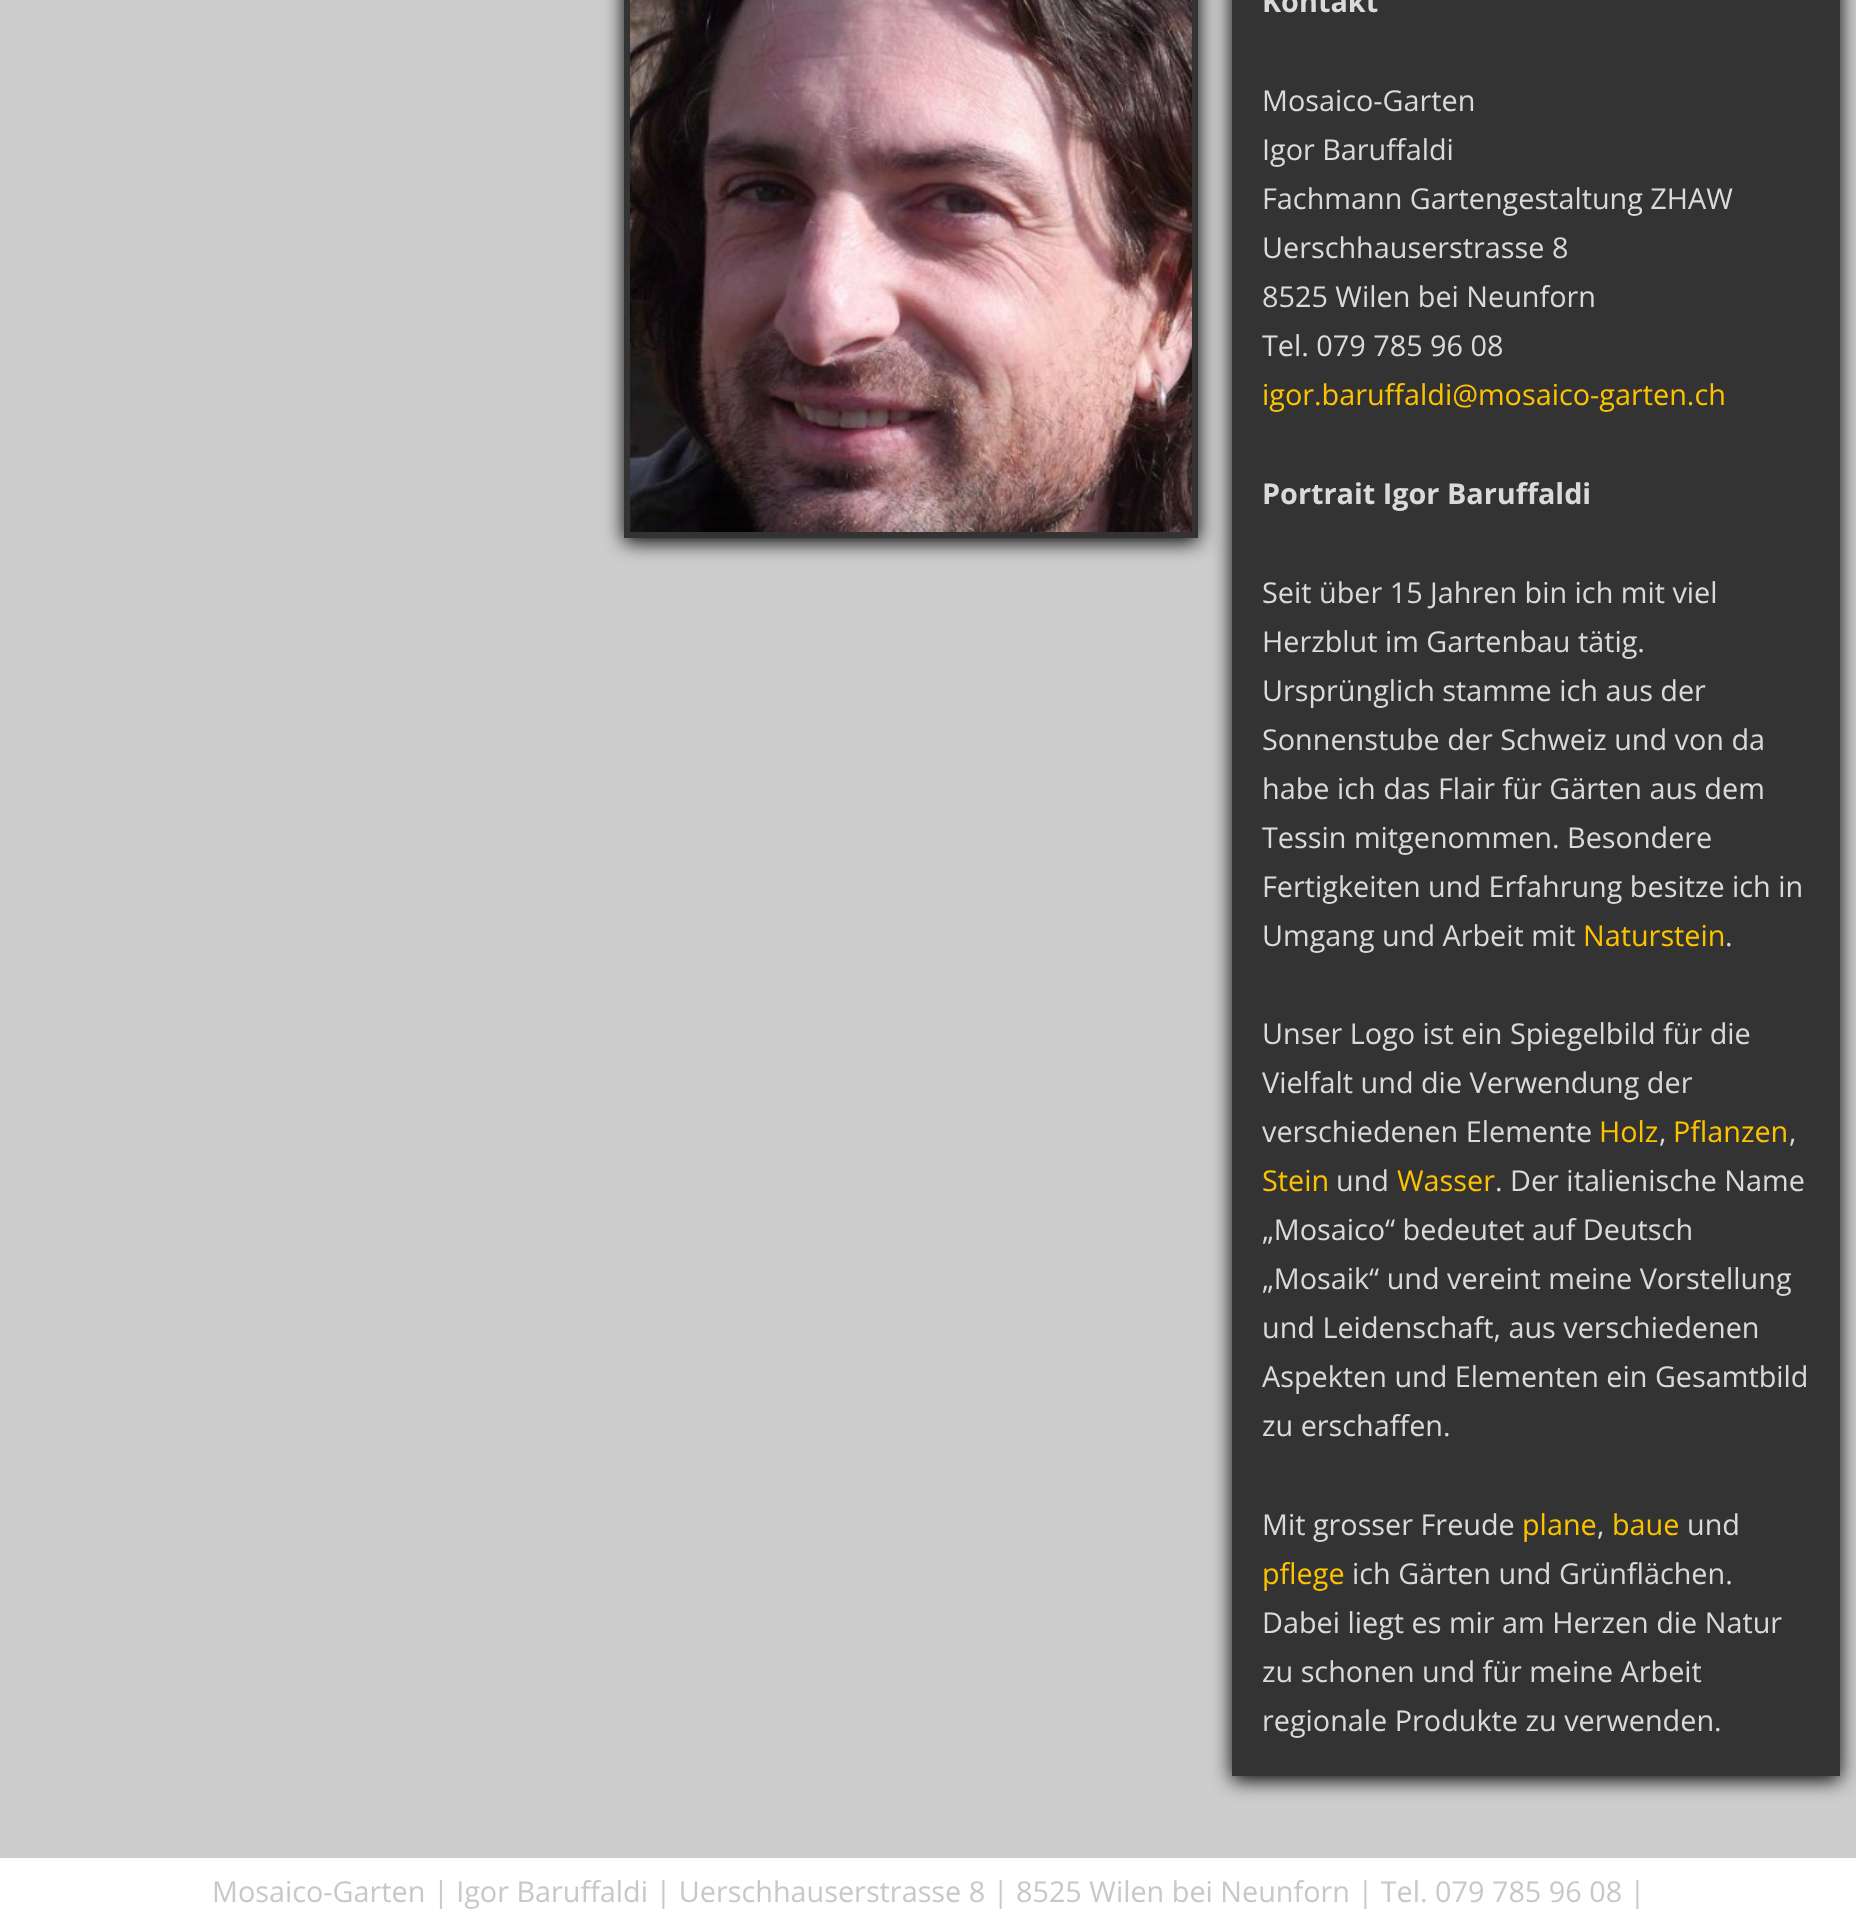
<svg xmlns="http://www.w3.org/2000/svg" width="1856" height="1928">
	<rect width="100%" height="100%" fill="#FFFFFF" />
	<rect x="0" y="0" width="1856" height="1858" fill="#CDCDCD" />
	<rect x="624" y="-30" width="574" height="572" fill="#000000" filter="blur(10px)" />
	<rect x="627" y="-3" width="568" height="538" fill="none" stroke="#333333" stroke-width="6" />
	<image x="630" y="0" width="562" height="532" href="assets/img1.png" />
	<rect x="1232" y="-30" width="608" height="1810" fill="#000000" filter="blur(10px)" />
	<rect x="1232" y="0" width="608" height="1776" fill="#333333" />
	<text x="1262" y="12" font-family="Open Sans" font-size="28.8" font-weight="700" fill="#DADADA">Kontakt</text>
	<g font-family="Open Sans" font-size="28.8" fill="#DADADA">
		<text x="1262" y="111">Mosaico-Garten</text>
		<text x="1262" y="160">Igor Baruffaldi</text>
		<text x="1262" y="209">Fachmann Gartengestaltung ZHAW</text>
		<text x="1262" y="258">Uerschhauserstrasse 8</text>
		<text x="1262" y="307">8525 Wilen bei Neunforn</text>
		<text x="1262" y="356">Tel. 079 785 96 08</text>
	</g>
	<text x="1262" y="405" font-family="Open Sans" font-size="28.8" fill="#FDC300">igor.baruffaldi@mosaico-garten.ch</text>
	<text x="1262" y="504" font-family="Open Sans" font-size="28.8" font-weight="700" fill="#DADADA">Portrait Igor Baruffaldi</text>
	<g font-family="Open Sans" font-size="28.8" fill="#DADADA">
		<text x="1262" y="603">Seit über 15 Jahren bin ich mit viel</text>
		<text x="1262" y="652">Herzblut im Gartenbau tätig.</text>
		<text x="1262" y="701">Ursprünglich stamme ich aus der</text>
		<text x="1262" y="750">Sonnenstube der Schweiz und von da</text>
		<text x="1262" y="799">habe ich das Flair für Gärten aus dem</text>
		<text x="1262" y="848">Tessin mitgenommen. Besondere</text>
		<text x="1262" y="897">Fertigkeiten und Erfahrung besitze ich in</text>
		<text x="1262" y="946">Umgang und Arbeit mit</text>
	</g>
	<text x="1583" y="946" font-family="Open Sans" font-size="28.8" fill="#FDC300">Naturstein</text>
	<g font-family="Open Sans" font-size="28.8" fill="#DADADA">
		<text x="1725" y="946">.</text>
		<text x="1262" y="1044">Unser Logo ist ein Spiegelbild für die</text>
		<text x="1262" y="1093">Vielfalt und die Verwendung der</text>
		<text x="1262" y="1142">verschiedenen Elemente</text>
	</g>
	<text x="1599" y="1142" font-family="Open Sans" font-size="28.8" fill="#FDC300">Holz</text>
	<text x="1659" y="1142" font-family="Open Sans" font-size="28.8" fill="#DADADA">,</text>
	<text x="1673" y="1142" font-family="Open Sans" font-size="28.8" fill="#FDC300">Pflanzen</text>
	<text x="1789" y="1142" font-family="Open Sans" font-size="28.8" fill="#DADADA">,</text>
	<text x="1262" y="1191" font-family="Open Sans" font-size="28.8" fill="#FDC300">Stein</text>
	<text x="1336" y="1191" font-family="Open Sans" font-size="28.8" fill="#DADADA">und</text>
	<text x="1397" y="1191" font-family="Open Sans" font-size="28.8" fill="#FDC300">Wasser</text>
	<g font-family="Open Sans" font-size="28.8" fill="#DADADA">
		<text x="1495" y="1191">. Der italienische Name</text>
		<text x="1262" y="1240">„Mosaico“ bedeutet auf Deutsch</text>
		<text x="1262" y="1289">„Mosaik“ und vereint meine Vorstellung</text>
		<text x="1262" y="1338">und Leidenschaft, aus verschiedenen</text>
		<text x="1262" y="1387">Aspekten und Elementen ein Gesamtbild</text>
		<text x="1262" y="1436">zu erschaffen.</text>
		<text x="1262" y="1535">Mit grosser Freude</text>
	</g>
	<text x="1522" y="1535" font-family="Open Sans" font-size="28.8" fill="#FDC300">plane</text>
	<text x="1597" y="1535" font-family="Open Sans" font-size="28.8" fill="#DADADA">,</text>
	<text x="1612" y="1535" font-family="Open Sans" font-size="28.8" fill="#FDC300">baue</text>
	<text x="1687" y="1535" font-family="Open Sans" font-size="28.8" fill="#DADADA">und</text>
	<text x="1262" y="1584" font-family="Open Sans" font-size="28.8" fill="#FDC300">pflege</text>
	<g font-family="Open Sans" font-size="28.8" fill="#DADADA">
		<text x="1352" y="1584">ich Gärten und Grünflächen.</text>
		<text x="1262" y="1633">Dabei liegt es mir am Herzen die Natur</text>
		<text x="1262" y="1682">zu schonen und für meine Arbeit</text>
		<text x="1262" y="1731">regionale Produkte zu verwenden.</text>
	</g>
	<text x="212" y="1902" font-family="Open Sans" font-size="28.8" fill="#C8C8C8">Mosaico-Garten | Igor Baruffaldi | Uerschhauserstrasse 8 | 8525 Wilen bei Neunforn | Tel. 079 785 96 08 |</text>
</svg>
